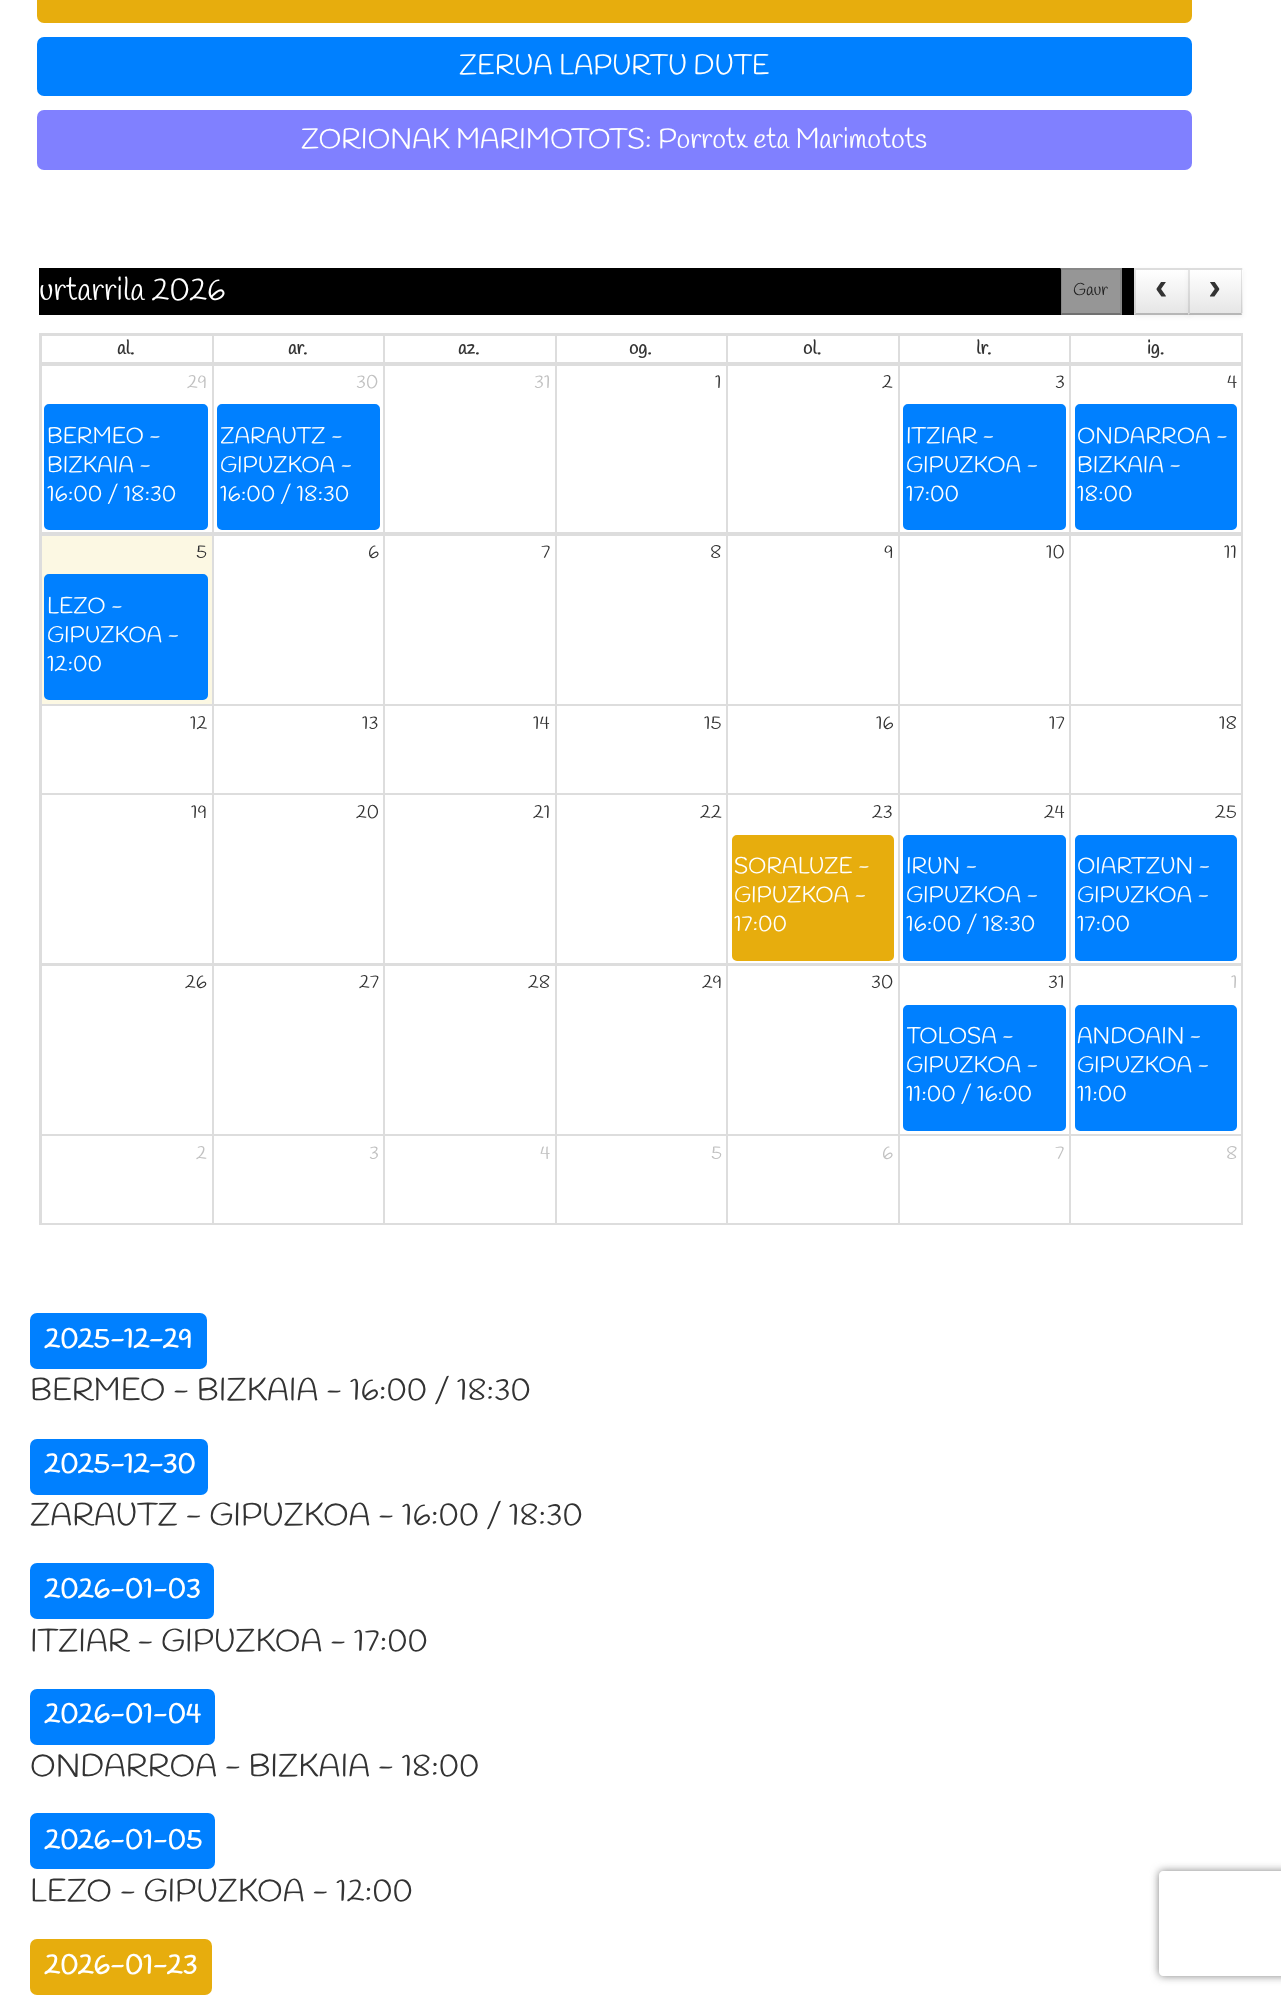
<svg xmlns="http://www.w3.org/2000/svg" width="1281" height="1999">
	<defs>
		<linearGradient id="g1" gradientUnits="userSpaceOnUse" x1="1162" y1="270" x2="1162" y2="313"><stop offset="0" stop-color="#FFFFFF" /><stop offset="1" stop-color="#E6E6E6" /></linearGradient>
		<clipPath id="clip1"><rect x="1150" y="282" width="23" height="19" /></clipPath>
		<linearGradient id="g2" gradientUnits="userSpaceOnUse" x1="1215" y1="270" x2="1215" y2="313"><stop offset="0" stop-color="#FFFFFF" /><stop offset="1" stop-color="#E6E6E6" /></linearGradient>
		<clipPath id="clip2"><rect x="1204" y="282" width="23" height="19" /></clipPath>
		<clipPath id="clip3"><rect x="221" y="406" width="155" height="123" /></clipPath>
		<clipPath id="clip4"><rect x="907" y="406" width="155" height="123" /></clipPath>
		<clipPath id="clip5"><rect x="907" y="837" width="155" height="122" /></clipPath>
		<clipPath id="clip6"><rect x="907" y="1006" width="155" height="123" /></clipPath>
		<clipPath id="clip7"><path d="M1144 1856H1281V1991H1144ZM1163 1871H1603C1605 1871 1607 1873 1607 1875V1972C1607 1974 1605 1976 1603 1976H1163C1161 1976 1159 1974 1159 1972V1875C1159 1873 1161 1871 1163 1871Z" clip-rule="evenodd" /></clipPath>
	</defs>
	<rect width="100%" height="100%" fill="#FFFFFF" />
	<rect x="37" y="-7" width="1155" height="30" rx="7" fill="#E7AD0D" />
	<rect x="37" y="37" width="1155" height="59" rx="7" fill="#0080FF" />
	<text x="459" y="74" font-family="Handlee" font-size="28" fill="#FFFFFF">ZERUA LAPURTU DUTE</text>
	<rect x="37" y="110" width="1155" height="60" rx="7" fill="#8080FF" />
	<text x="301" y="148" font-family="Handlee" font-size="28" fill="#FFFFFF">ZORIONAK MARIMOTOTS: Porrotx eta Marimotots</text>
	<rect x="39" y="268" width="1095" height="47" fill="#000000" />
	<text x="39" y="300" font-family="Handlee" font-size="31.5" fill="#FFFFFF">urtarrila 2026</text>
	<rect x="1061" y="268" width="61" height="47" fill="#969696" />
	<path d="M1060 268H1122L1120 270H1062Z" fill="#878787" />
	<path d="M1122 268V315L1120 313V270Z" fill="#000000" fill-opacity="0.1" />
	<path d="M1122 315H1060L1062 313H1120Z" fill="#000000" fill-opacity="0.25" />
	<path d="M1060 315V268L1062 270V313Z" fill="#000000" fill-opacity="0.1" />
	<text x="1073" y="295" font-family="Handlee" font-size="17" fill="#212121">Gaur</text>
	<rect x="1134" y="270" width="56" height="47" fill="#000000" fill-opacity="0.05" filter="blur(2px)" />
	<rect x="1134" y="268" width="54" height="47" fill="#F5F5F5" />
	<rect x="1134" y="270" width="54" height="43" fill="url(#g1)" />
	<path d="M1134 268H1190L1188 270H1136Z" fill="#DDDDDD" />
	<path d="M1190 315H1134L1136 313H1188Z" fill="#000000" fill-opacity="0.25" />
	<path d="M1134 315V268L1136 270V313Z" fill="#000000" fill-opacity="0.1" />
	<g clip-path="url(#clip1)">
		<text x="1150" y="299" font-family="Liberation Mono" font-size="38" font-weight="700" fill="#333333">‹</text>
	</g>
	<rect x="1188" y="270" width="55" height="47" fill="#000000" fill-opacity="0.05" filter="blur(2px)" />
	<rect x="1188" y="268" width="55" height="47" fill="#F5F5F5" />
	<rect x="1188" y="270" width="55" height="43" fill="url(#g2)" />
	<path d="M1188 268H1242L1241 270H1190Z" fill="#DDDDDD" />
	<path d="M1242 268V315L1241 313V270Z" fill="#000000" fill-opacity="0.1" />
	<path d="M1242 315H1188L1190 313H1241Z" fill="#000000" fill-opacity="0.25" />
	<path d="M1188 315V268L1190 270V313Z" fill="#000000" fill-opacity="0.1" />
	<g clip-path="url(#clip2)">
		<text x="1203" y="299" font-family="Liberation Mono" font-size="38" font-weight="700" fill="#333333">›</text>
	</g>
	<rect x="39" y="333" width="1204" height="1" fill="#DDDDDD" />
	<rect x="39" y="364" width="1204" height="2" fill="#DDDDDD" />
	<rect x="1241" y="364" width="2" height="861" fill="#DDDDDD" />
	<rect x="1241" y="333" width="2" height="33" fill="#DDDDDD" />
	<rect x="39" y="1223" width="1204" height="2" fill="#DDDDDD" />
	<rect x="39" y="364" width="2" height="861" fill="#DDDDDD" />
	<rect x="39" y="333" width="2" height="33" fill="#DDDDDD" />
	<rect x="1069" y="334" width="174" height="2" fill="#DDDDDD" />
	<rect x="1069" y="362" width="174" height="2" fill="#DDDDDD" />
	<rect x="1069" y="334" width="2" height="30" fill="#DDDDDD" />
	<rect x="898" y="334" width="173" height="2" fill="#DDDDDD" />
	<rect x="898" y="362" width="173" height="2" fill="#DDDDDD" />
	<rect x="898" y="334" width="2" height="30" fill="#DDDDDD" />
	<rect x="726" y="334" width="174" height="2" fill="#DDDDDD" />
	<rect x="726" y="362" width="174" height="2" fill="#DDDDDD" />
	<rect x="726" y="334" width="2" height="30" fill="#DDDDDD" />
	<rect x="555" y="334" width="173" height="2" fill="#DDDDDD" />
	<rect x="555" y="362" width="173" height="2" fill="#DDDDDD" />
	<rect x="555" y="334" width="2" height="30" fill="#DDDDDD" />
	<rect x="383" y="334" width="174" height="2" fill="#DDDDDD" />
	<rect x="383" y="362" width="174" height="2" fill="#DDDDDD" />
	<rect x="383" y="334" width="2" height="30" fill="#DDDDDD" />
	<rect x="212" y="334" width="173" height="2" fill="#DDDDDD" />
	<rect x="212" y="362" width="173" height="2" fill="#DDDDDD" />
	<rect x="212" y="334" width="2" height="30" fill="#DDDDDD" />
	<rect x="40" y="334" width="174" height="2" fill="#DDDDDD" />
	<rect x="40" y="362" width="174" height="2" fill="#DDDDDD" />
	<rect x="41" y="334" width="1" height="30" fill="#DDDDDD" />
	<g font-family="Handlee" font-size="19" font-weight="700" fill="#333333">
		<text x="117" y="354">al.</text>
		<text x="288" y="354">ar.</text>
		<text x="458" y="354">az.</text>
		<text x="629" y="354">og.</text>
		<text x="803" y="354">ol.</text>
		<text x="976" y="354">lr.</text>
		<text x="1147" y="354">ig.</text>
	</g>
	<rect x="1069" y="532" width="172" height="4" fill="#DDDDDD" />
	<rect x="1069" y="366" width="2" height="168" fill="#DDDDDD" />
	<rect x="898" y="532" width="173" height="2" fill="#DDDDDD" />
	<rect x="898" y="366" width="2" height="168" fill="#DDDDDD" />
	<rect x="726" y="532" width="174" height="2" fill="#DDDDDD" />
	<rect x="726" y="366" width="2" height="168" fill="#DDDDDD" />
	<rect x="555" y="532" width="173" height="2" fill="#DDDDDD" />
	<rect x="555" y="366" width="2" height="168" fill="#DDDDDD" />
	<rect x="383" y="532" width="174" height="2" fill="#DDDDDD" />
	<rect x="383" y="366" width="2" height="168" fill="#DDDDDD" />
	<rect x="212" y="532" width="173" height="2" fill="#DDDDDD" />
	<rect x="212" y="366" width="2" height="168" fill="#DDDDDD" />
	<rect x="40" y="532" width="174" height="2" fill="#DDDDDD" />
	<rect x="41" y="366" width="1" height="168" fill="#DDDDDD" />
	<g font-family="Handlee" font-size="19" fill="#C1C1C1">
		<text x="187" y="388">29</text>
		<text x="356" y="388">30</text>
		<text x="534" y="388">31</text>
	</g>
	<g font-family="Handlee" font-size="19" fill="#333333">
		<text x="715" y="388">1</text>
		<text x="882" y="388">2</text>
		<text x="1055" y="388">3</text>
		<text x="1227" y="388">4</text>
	</g>
	<rect x="45" y="405" width="162" height="124" rx="4" fill="#0080FF" stroke="#0080FF" stroke-width="2" />
	<g font-family="Handlee" font-size="22.5" fill="#FFFFFF">
		<text x="47" y="443">BERMEO -</text>
		<text x="47" y="472">BIZKAIA -</text>
		<text x="47" y="501">16:00 / 18:30</text>
	</g>
	<rect x="218" y="405" width="161" height="124" rx="4" fill="#0080FF" stroke="#0080FF" stroke-width="2" />
	<g clip-path="url(#clip3)">
		<g font-family="Handlee" font-size="22.5" fill="#FFFFFF">
			<text x="220" y="443">ZARAUTZ -</text>
			<text x="220" y="472">GIPUZKOA -</text>
		</g>
	</g>
	<text x="220" y="501" font-family="Handlee" font-size="22.5" fill="#FFFFFF">16:00 / 18:30</text>
	<rect x="904" y="405" width="161" height="124" rx="4" fill="#0080FF" stroke="#0080FF" stroke-width="2" />
	<text x="906" y="443" font-family="Handlee" font-size="22.5" fill="#FFFFFF">ITZIAR -</text>
	<g clip-path="url(#clip4)">
		<text x="906" y="472" font-family="Handlee" font-size="22.5" fill="#FFFFFF">GIPUZKOA -</text>
	</g>
	<text x="906" y="501" font-family="Handlee" font-size="22.5" fill="#FFFFFF">17:00</text>
	<rect x="1076" y="405" width="160" height="124" rx="4" fill="#0080FF" stroke="#0080FF" stroke-width="2" />
	<g font-family="Handlee" font-size="22.5" fill="#FFFFFF">
		<text x="1077" y="443">ONDARROA -</text>
		<text x="1077" y="472">BIZKAIA -</text>
		<text x="1077" y="501">18:00</text>
	</g>
	<rect x="42" y="536" width="170" height="168" fill="#FCF8E3" />
	<rect x="1069" y="704" width="172" height="2" fill="#DDDDDD" />
	<rect x="1069" y="534" width="2" height="171" fill="#DDDDDD" />
	<rect x="898" y="534" width="173" height="2" fill="#DDDDDD" />
	<rect x="898" y="704" width="173" height="2" fill="#DDDDDD" />
	<rect x="898" y="534" width="2" height="171" fill="#DDDDDD" />
	<rect x="726" y="534" width="174" height="2" fill="#DDDDDD" />
	<rect x="726" y="704" width="174" height="2" fill="#DDDDDD" />
	<rect x="726" y="534" width="2" height="171" fill="#DDDDDD" />
	<rect x="555" y="534" width="173" height="2" fill="#DDDDDD" />
	<rect x="555" y="704" width="173" height="2" fill="#DDDDDD" />
	<rect x="555" y="534" width="2" height="171" fill="#DDDDDD" />
	<rect x="383" y="534" width="174" height="2" fill="#DDDDDD" />
	<rect x="383" y="704" width="174" height="2" fill="#DDDDDD" />
	<rect x="383" y="534" width="2" height="171" fill="#DDDDDD" />
	<rect x="212" y="534" width="173" height="2" fill="#DDDDDD" />
	<rect x="212" y="704" width="173" height="2" fill="#DDDDDD" />
	<rect x="212" y="534" width="2" height="171" fill="#DDDDDD" />
	<rect x="40" y="534" width="174" height="2" fill="#DDDDDD" />
	<rect x="40" y="704" width="174" height="2" fill="#DDDDDD" />
	<rect x="41" y="534" width="1" height="171" fill="#DDDDDD" />
	<g font-family="Handlee" font-size="19" fill="#333333">
		<text x="196" y="558">5</text>
		<text x="368" y="558">6</text>
		<text x="541" y="558">7</text>
		<text x="710" y="558">8</text>
		<text x="884" y="558">9</text>
		<text x="1046" y="558">10</text>
		<text x="1224" y="558">11</text>
	</g>
	<rect x="45" y="575" width="162" height="124" rx="4" fill="#0080FF" stroke="#0080FF" stroke-width="2" />
	<g font-family="Handlee" font-size="22.5" fill="#FFFFFF">
		<text x="47" y="613">LEZO -</text>
		<text x="47" y="642">GIPUZKOA -</text>
		<text x="47" y="671">12:00</text>
	</g>
	<rect x="1069" y="793" width="172" height="2" fill="#DDDDDD" />
	<rect x="1069" y="704" width="2" height="91" fill="#DDDDDD" />
	<rect x="898" y="793" width="173" height="2" fill="#DDDDDD" />
	<rect x="898" y="704" width="2" height="91" fill="#DDDDDD" />
	<rect x="726" y="793" width="174" height="2" fill="#DDDDDD" />
	<rect x="726" y="704" width="2" height="91" fill="#DDDDDD" />
	<rect x="555" y="793" width="173" height="2" fill="#DDDDDD" />
	<rect x="555" y="704" width="2" height="91" fill="#DDDDDD" />
	<rect x="383" y="793" width="174" height="2" fill="#DDDDDD" />
	<rect x="383" y="704" width="2" height="91" fill="#DDDDDD" />
	<rect x="212" y="793" width="173" height="2" fill="#DDDDDD" />
	<rect x="212" y="704" width="2" height="91" fill="#DDDDDD" />
	<rect x="40" y="793" width="174" height="2" fill="#DDDDDD" />
	<rect x="41" y="704" width="1" height="91" fill="#DDDDDD" />
	<g font-family="Handlee" font-size="19" fill="#333333">
		<text x="190" y="729">12</text>
		<text x="362" y="729">13</text>
		<text x="533" y="729">14</text>
		<text x="704" y="729">15</text>
		<text x="876" y="729">16</text>
		<text x="1049" y="729">17</text>
		<text x="1219" y="729">18</text>
	</g>
	<rect x="1069" y="963" width="172" height="3" fill="#DDDDDD" />
	<rect x="1069" y="793" width="2" height="171" fill="#DDDDDD" />
	<rect x="898" y="963" width="173" height="1" fill="#DDDDDD" />
	<rect x="898" y="793" width="2" height="171" fill="#DDDDDD" />
	<rect x="726" y="963" width="174" height="1" fill="#DDDDDD" />
	<rect x="726" y="793" width="2" height="171" fill="#DDDDDD" />
	<rect x="555" y="963" width="173" height="1" fill="#DDDDDD" />
	<rect x="555" y="793" width="2" height="171" fill="#DDDDDD" />
	<rect x="383" y="963" width="174" height="1" fill="#DDDDDD" />
	<rect x="383" y="793" width="2" height="171" fill="#DDDDDD" />
	<rect x="212" y="963" width="173" height="1" fill="#DDDDDD" />
	<rect x="212" y="793" width="2" height="171" fill="#DDDDDD" />
	<rect x="40" y="963" width="174" height="1" fill="#DDDDDD" />
	<rect x="41" y="793" width="1" height="171" fill="#DDDDDD" />
	<g font-family="Handlee" font-size="19" fill="#333333">
		<text x="191" y="818">19</text>
		<text x="356" y="818">20</text>
		<text x="533" y="818">21</text>
		<text x="700" y="818">22</text>
		<text x="872" y="818">23</text>
		<text x="1044" y="818">24</text>
		<text x="1215" y="818">25</text>
	</g>
	<rect x="733" y="836" width="160" height="124" rx="4" fill="#E7AD0D" stroke="#E7AD0D" stroke-width="2" />
	<g font-family="Handlee" font-size="22.5" fill="#FFFFFF">
		<text x="734" y="873">SORALUZE -</text>
		<text x="734" y="902">GIPUZKOA -</text>
		<text x="734" y="931">17:00</text>
	</g>
	<rect x="904" y="836" width="161" height="124" rx="4" fill="#0080FF" stroke="#0080FF" stroke-width="2" />
	<text x="906" y="873" font-family="Handlee" font-size="22.5" fill="#FFFFFF">IRUN -</text>
	<g clip-path="url(#clip5)">
		<text x="906" y="902" font-family="Handlee" font-size="22.5" fill="#FFFFFF">GIPUZKOA -</text>
	</g>
	<text x="906" y="931" font-family="Handlee" font-size="22.5" fill="#FFFFFF">16:00 / 18:30</text>
	<rect x="1076" y="836" width="160" height="124" rx="4" fill="#0080FF" stroke="#0080FF" stroke-width="2" />
	<g font-family="Handlee" font-size="22.5" fill="#FFFFFF">
		<text x="1077" y="873">OIARTZUN -</text>
		<text x="1077" y="902">GIPUZKOA -</text>
		<text x="1077" y="931">17:00</text>
	</g>
	<rect x="1069" y="1134" width="172" height="2" fill="#DDDDDD" />
	<rect x="1069" y="964" width="2" height="172" fill="#DDDDDD" />
	<rect x="898" y="964" width="173" height="2" fill="#DDDDDD" />
	<rect x="898" y="1134" width="173" height="2" fill="#DDDDDD" />
	<rect x="898" y="964" width="2" height="172" fill="#DDDDDD" />
	<rect x="726" y="964" width="174" height="2" fill="#DDDDDD" />
	<rect x="726" y="1134" width="174" height="2" fill="#DDDDDD" />
	<rect x="726" y="964" width="2" height="172" fill="#DDDDDD" />
	<rect x="555" y="964" width="173" height="2" fill="#DDDDDD" />
	<rect x="555" y="1134" width="173" height="2" fill="#DDDDDD" />
	<rect x="555" y="964" width="2" height="172" fill="#DDDDDD" />
	<rect x="383" y="964" width="174" height="2" fill="#DDDDDD" />
	<rect x="383" y="1134" width="174" height="2" fill="#DDDDDD" />
	<rect x="383" y="964" width="2" height="172" fill="#DDDDDD" />
	<rect x="212" y="964" width="173" height="2" fill="#DDDDDD" />
	<rect x="212" y="1134" width="173" height="2" fill="#DDDDDD" />
	<rect x="212" y="964" width="2" height="172" fill="#DDDDDD" />
	<rect x="40" y="964" width="174" height="2" fill="#DDDDDD" />
	<rect x="40" y="1134" width="174" height="2" fill="#DDDDDD" />
	<rect x="41" y="964" width="1" height="259" fill="#DDDDDD" />
	<g font-family="Handlee" font-size="19" fill="#333333">
		<text x="185" y="988">26</text>
		<text x="359" y="988">27</text>
		<text x="528" y="988">28</text>
		<text x="702" y="988">29</text>
		<text x="871" y="988">30</text>
		<text x="1048" y="988">31</text>
	</g>
	<text x="1231" y="988" font-family="Handlee" font-size="19" fill="#C1C1C1">1</text>
	<rect x="904" y="1006" width="161" height="124" rx="4" fill="#0080FF" stroke="#0080FF" stroke-width="2" />
	<g clip-path="url(#clip6)">
		<g font-family="Handlee" font-size="22.5" fill="#FFFFFF">
			<text x="906" y="1043">TOLOSA -</text>
			<text x="906" y="1072">GIPUZKOA -</text>
		</g>
	</g>
	<text x="906" y="1101" font-family="Handlee" font-size="22.5" fill="#FFFFFF">11:00 / 16:00</text>
	<rect x="1076" y="1006" width="160" height="124" rx="4" fill="#0080FF" stroke="#0080FF" stroke-width="2" />
	<g font-family="Handlee" font-size="22.5" fill="#FFFFFF">
		<text x="1077" y="1043">ANDOAIN -</text>
		<text x="1077" y="1072">GIPUZKOA -</text>
		<text x="1077" y="1101">11:00</text>
	</g>
	<rect x="212" y="1134" width="2" height="89" fill="#DDDDDD" />
	<rect x="383" y="1134" width="2" height="89" fill="#DDDDDD" />
	<rect x="555" y="1134" width="2" height="89" fill="#DDDDDD" />
	<rect x="726" y="1134" width="2" height="89" fill="#DDDDDD" />
	<rect x="898" y="1134" width="2" height="89" fill="#DDDDDD" />
	<rect x="1069" y="1134" width="2" height="89" fill="#DDDDDD" />
	<g font-family="Handlee" font-size="19" fill="#C1C1C1">
		<text x="196" y="1159">2</text>
		<text x="369" y="1159">3</text>
		<text x="540" y="1159">4</text>
		<text x="711" y="1159">5</text>
		<text x="882" y="1159">6</text>
		<text x="1055" y="1159">7</text>
		<text x="1226" y="1159">8</text>
	</g>
	<rect x="30" y="1313" width="177" height="56" rx="7" fill="#0080FF" />
	<text x="44" y="1348" font-family="Handlee" font-size="28" font-weight="700" fill="#FFFFFF">2025-12-29</text>
	<text x="30" y="1400" font-family="Handlee" font-size="31.5" fill="#333333">BERMEO - BIZKAIA - 16:00 / 18:30</text>
	<rect x="30" y="1439" width="178" height="56" rx="7" fill="#0080FF" />
	<text x="44" y="1473" font-family="Handlee" font-size="28" font-weight="700" fill="#FFFFFF">2025-12-30</text>
	<text x="30" y="1525" font-family="Handlee" font-size="31.5" fill="#333333">ZARAUTZ - GIPUZKOA - 16:00 / 18:30</text>
	<rect x="30" y="1563" width="184" height="56" rx="7" fill="#0080FF" />
	<text x="44" y="1598" font-family="Handlee" font-size="28" font-weight="700" fill="#FFFFFF">2026-01-03</text>
	<text x="30" y="1651" font-family="Handlee" font-size="31.5" fill="#333333">ITZIAR - GIPUZKOA - 17:00</text>
	<rect x="30" y="1689" width="185" height="56" rx="7" fill="#0080FF" />
	<text x="44" y="1723" font-family="Handlee" font-size="28" font-weight="700" fill="#FFFFFF">2026-01-04</text>
	<text x="30" y="1776" font-family="Handlee" font-size="31.5" fill="#333333">ONDARROA - BIZKAIA - 18:00</text>
	<rect x="30" y="1813" width="185" height="56" rx="7" fill="#0080FF" />
	<text x="44" y="1849" font-family="Handlee" font-size="28" font-weight="700" fill="#FFFFFF">2026-01-05</text>
	<text x="30" y="1901" font-family="Handlee" font-size="31.5" fill="#333333">LEZO - GIPUZKOA - 12:00</text>
	<rect x="30" y="1939" width="182" height="56" rx="7" fill="#E7AD0D" />
	<text x="44" y="1974" font-family="Handlee" font-size="28" font-weight="700" fill="#FFFFFF">2026-01-23</text>
	<g clip-path="url(#clip7)">
		<rect x="1159" y="1871" width="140" height="105" rx="4" fill="#808080" filter="blur(4.5px)" />
	</g>
</svg>
